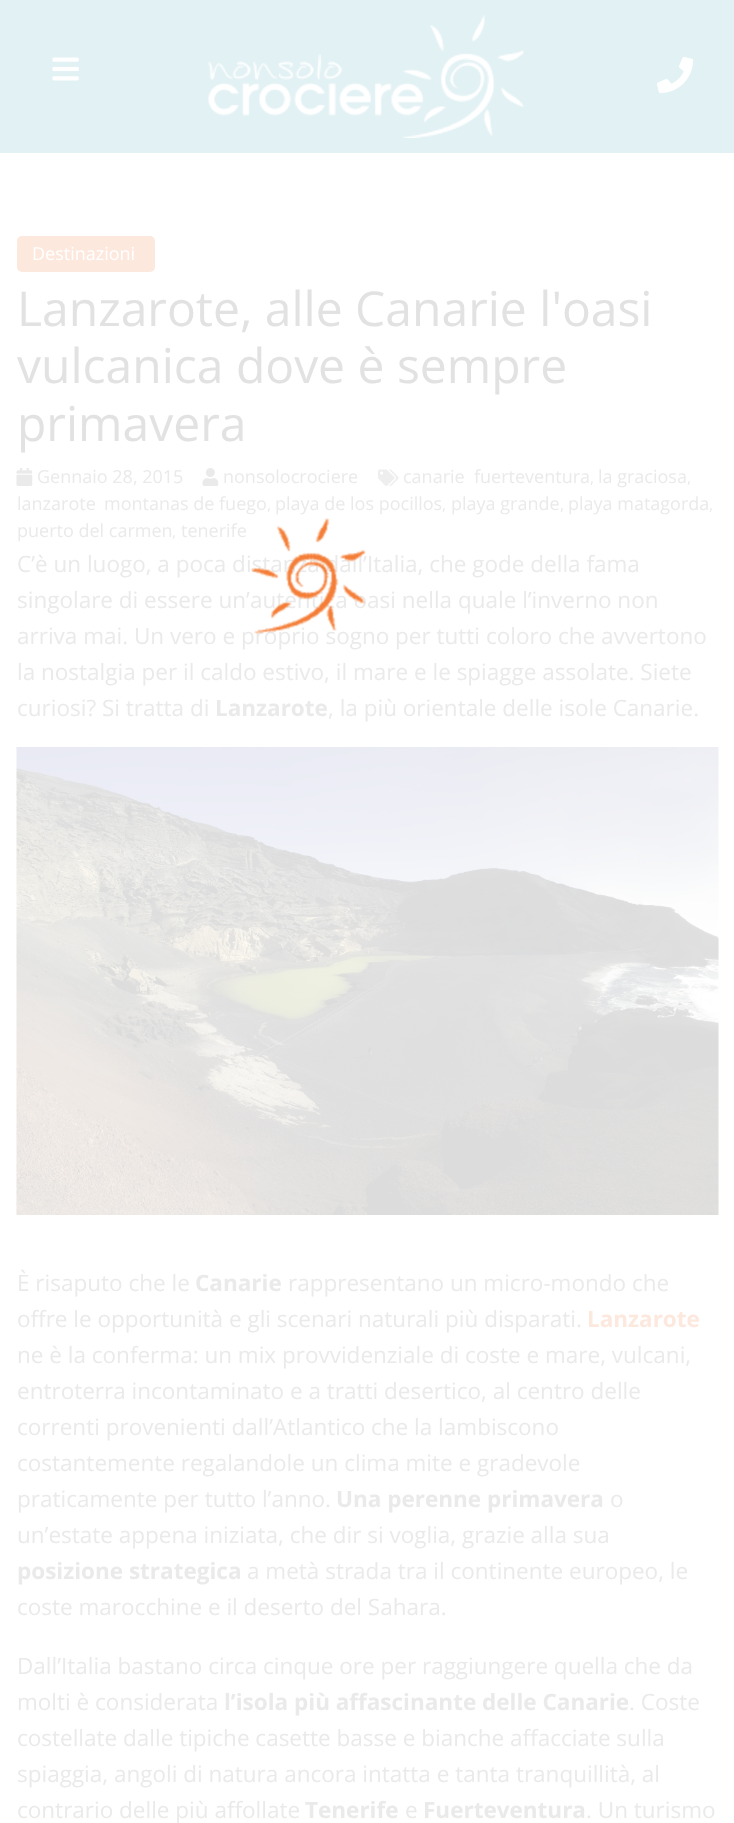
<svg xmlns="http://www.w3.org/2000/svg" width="734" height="1823">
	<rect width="100%" height="100%" fill="#FFFFFF" />
	<rect x="0" y="0" width="734" height="153" fill="#E2F1F4" />
	<image x="52" y="57" width="27" height="24" href="assets/img1.png" />
	<image x="208" y="15" width="316" height="123" href="assets/img2.png" />
	<image x="657" y="57" width="36" height="36" href="assets/img3.png" />
	<rect x="17" y="236" width="138" height="36" rx="5" fill="#FDE8DE" />
	<text x="32" y="260" font-family="Open Sans" font-size="18" fill="#FFFFFF">Destinazioni</text>
	<g font-family="Open Sans" font-size="48" fill="#E2E2E2">
		<text x="17" y="326">Lanzarote, alle Canarie l'oasi</text>
		<text x="17" y="383">vulcanica dove è sempre</text>
		<text x="17" y="441">primavera</text>
	</g>
	<image x="378" y="469" width="21" height="17" href="assets/img4.png" />
	<g font-family="Open Sans" font-size="18" fill="#EAEAEA">
		<text x="403" y="483">canarie</text>
		<text x="474" y="483">fuerteventura</text>
	</g>
	<text x="590" y="483" font-family="Open Sans" font-size="16" fill="#EAEAEA">,</text>
	<text x="598" y="483" font-family="Open Sans" font-size="18" fill="#EAEAEA">la graciosa</text>
	<text x="687" y="483" font-family="Open Sans" font-size="16" fill="#EAEAEA">,</text>
	<g font-family="Open Sans" font-size="18" fill="#EAEAEA">
		<text x="17" y="510">lanzarote</text>
		<text x="104" y="510">montanas de fuego</text>
	</g>
	<text x="267" y="510" font-family="Open Sans" font-size="16" fill="#EAEAEA">,</text>
	<text x="275" y="510" font-family="Open Sans" font-size="18" fill="#EAEAEA">playa de los pocillos</text>
	<text x="442" y="510" font-family="Open Sans" font-size="16" fill="#EAEAEA">,</text>
	<text x="451" y="510" font-family="Open Sans" font-size="18" fill="#EAEAEA">playa grande</text>
	<text x="560" y="510" font-family="Open Sans" font-size="16" fill="#EAEAEA">,</text>
	<text x="568" y="510" font-family="Open Sans" font-size="18" fill="#EAEAEA">playa matagorda</text>
	<text x="709" y="510" font-family="Open Sans" font-size="16" fill="#EAEAEA">,</text>
	<text x="17" y="537" font-family="Open Sans" font-size="18" fill="#EAEAEA">puerto del carmen</text>
	<text x="172" y="537" font-family="Open Sans" font-size="16" fill="#EAEAEA">,</text>
	<text x="181" y="537" font-family="Open Sans" font-size="18" fill="#EAEAEA">tenerife</text>
	<image x="16" y="468" width="17" height="18" href="assets/img5.png" />
	<text x="37" y="483" font-family="Open Sans" font-size="18" fill="#EAEAEA">Gennaio 28, 2015</text>
	<image x="202" y="468" width="17" height="18" href="assets/img6.png" />
	<text x="223" y="483" font-family="Open Sans" font-size="18" fill="#EAEAEA">nonsolocrociere</text>
	<g font-family="Open Sans" font-size="22.5" fill="#EAEAEA">
		<text x="17" y="572">C’è un luogo, a poca distanza dall’Italia, che gode della fama</text>
		<text x="17" y="608">singolare di essere un’autentica oasi nella quale l’inverno non</text>
		<text x="17" y="644">arriva mai. Un vero e proprio sogno per tutti coloro che avvertono</text>
		<text x="17" y="680">la nostalgia per il caldo estivo, il mare e le spiagge assolate. Siete</text>
		<text x="17" y="716">curiosi? Si tratta di</text>
	</g>
	<text x="215" y="716" font-family="Open Sans" font-size="22.5" font-weight="700" fill="#EAEAEA">Lanzarote</text>
	<text x="328" y="716" font-family="Open Sans" font-size="22.5" fill="#EAEAEA">, la più orientale delle isole Canarie.</text>
	<image x="16" y="747" width="703" height="468" href="assets/img7.png" />
	<text x="17" y="1291" font-family="Open Sans" font-size="22.5" fill="#EAEAEA">È risaputo che le</text>
	<text x="195" y="1291" font-family="Open Sans" font-size="22.5" font-weight="700" fill="#EAEAEA">Canarie</text>
	<g font-family="Open Sans" font-size="22.5" fill="#EAEAEA">
		<text x="288" y="1291">rappresentano un micro-mondo che</text>
		<text x="17" y="1327">offre le opportunità e gli scenari naturali più disparati.</text>
	</g>
	<text x="587" y="1327" font-family="Open Sans" font-size="22.5" font-weight="700" fill="#FDE8DE">Lanzarote</text>
	<g font-family="Open Sans" font-size="22.5" fill="#EAEAEA">
		<text x="17" y="1363">ne è la conferma: un mix provvidenziale di coste e mare, vulcani,</text>
		<text x="17" y="1399">entroterra incontaminato e a tratti desertico, al centro delle</text>
		<text x="17" y="1435">correnti provenienti dall’Atlantico che la lambiscono</text>
		<text x="17" y="1471">costantemente regalandole un clima mite e gradevole</text>
		<text x="17" y="1507">praticamente per tutto l’anno.</text>
	</g>
	<text x="336" y="1507" font-family="Open Sans" font-size="22.5" font-weight="700" fill="#EAEAEA">Una perenne primavera</text>
	<g font-family="Open Sans" font-size="22.5" fill="#EAEAEA">
		<text x="610" y="1507">o</text>
		<text x="17" y="1543">un’estate appena iniziata, che dir si voglia, grazie alla sua</text>
	</g>
	<text x="17" y="1579" font-family="Open Sans" font-size="22.5" font-weight="700" fill="#EAEAEA">posizione strategica</text>
	<g font-family="Open Sans" font-size="22.5" fill="#EAEAEA">
		<text x="247" y="1579">a metà strada tra il continente europeo, le</text>
		<text x="17" y="1615">coste marocchine e il deserto del Sahara.</text>
		<text x="17" y="1674">Dall’Italia bastano circa cinque ore per raggiungere quella che da</text>
		<text x="17" y="1710">molti è considerata</text>
	</g>
	<text x="224" y="1710" font-family="Open Sans" font-size="22.5" font-weight="700" fill="#EAEAEA">l’isola più affascinante delle Canarie</text>
	<g font-family="Open Sans" font-size="22.5" fill="#EAEAEA">
		<text x="629" y="1710">. Coste</text>
		<text x="17" y="1746">costellate dalle tipiche casette basse e bianche affacciate sulla</text>
		<text x="17" y="1782">spiaggia, angoli di natura ancora intatta e tanta tranquillità, al</text>
		<text x="17" y="1818">contrario delle più affollate</text>
	</g>
	<text x="305" y="1818" font-family="Open Sans" font-size="22.5" font-weight="700" fill="#EAEAEA">Tenerife</text>
	<text x="405" y="1818" font-family="Open Sans" font-size="22.5" fill="#EAEAEA">e</text>
	<text x="423" y="1818" font-family="Open Sans" font-size="22.5" font-weight="700" fill="#EAEAEA">Fuerteventura</text>
	<text x="586" y="1818" font-family="Open Sans" font-size="22.5" fill="#EAEAEA">. Un turismo</text>
	<image x="251" y="518" width="115" height="116" href="assets/img8.png" />
</svg>
